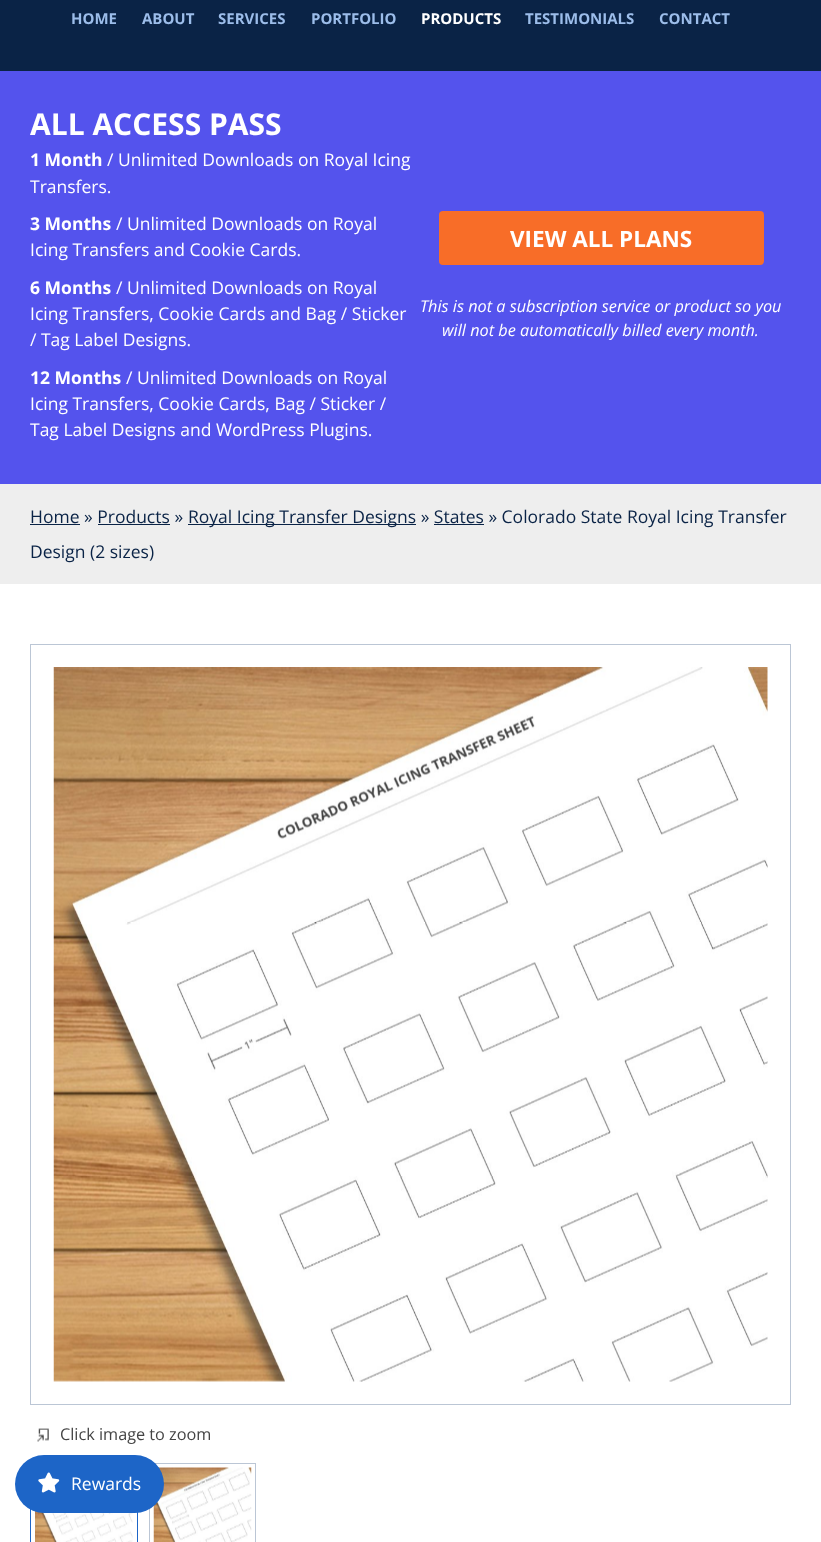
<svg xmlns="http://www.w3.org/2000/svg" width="821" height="1542">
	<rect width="100%" height="100%" fill="#FFFFFF" />
	<rect x="0" y="0" width="821" height="71" fill="#0A2346" />
	<g font-family="Open Sans" font-size="15" font-weight="700" fill="#9CBDEA">
		<text x="71" y="24">HOME</text>
		<text x="142" y="24">ABOUT</text>
		<text x="218" y="24">SERVICES</text>
		<text x="311" y="24">PORTFOLIO</text>
	</g>
	<text x="421" y="24" font-family="Open Sans" font-size="15" font-weight="700" fill="#FFFFFF">PRODUCTS</text>
	<g font-family="Open Sans" font-size="15" font-weight="700" fill="#9CBDEA">
		<text x="525" y="24">TESTIMONIALS</text>
		<text x="659" y="24">CONTACT</text>
	</g>
	<rect x="0" y="71" width="821" height="413" fill="#5453ED" />
	<text x="30" y="135" font-family="Open Sans" font-size="30" font-weight="700" fill="#FFFFFF">ALL ACCESS PASS</text>
	<text x="30" y="166" font-family="Open Sans" font-size="17.5" font-weight="700" fill="#FFFFFF">1 Month</text>
	<g font-family="Open Sans" font-size="17.5" fill="#FFFFFF">
		<text x="107" y="166">/ Unlimited Downloads on Royal Icing</text>
		<text x="30" y="193">Transfers.</text>
	</g>
	<text x="30" y="230" font-family="Open Sans" font-size="17.5" font-weight="700" fill="#FFFFFF">3 Months</text>
	<g font-family="Open Sans" font-size="17.5" fill="#FFFFFF">
		<text x="116" y="230">/ Unlimited Downloads on Royal</text>
		<text x="30" y="256">Icing Transfers and Cookie Cards.</text>
	</g>
	<text x="30" y="294" font-family="Open Sans" font-size="17.5" font-weight="700" fill="#FFFFFF">6 Months</text>
	<g font-family="Open Sans" font-size="17.5" fill="#FFFFFF">
		<text x="116" y="294">/ Unlimited Downloads on Royal</text>
		<text x="30" y="320">Icing Transfers, Cookie Cards and Bag / Sticker</text>
		<text x="30" y="346">/ Tag Label Designs.</text>
	</g>
	<text x="30" y="384" font-family="Open Sans" font-size="17.5" font-weight="700" fill="#FFFFFF">12 Months</text>
	<g font-family="Open Sans" font-size="17.5" fill="#FFFFFF">
		<text x="126" y="384">/ Unlimited Downloads on Royal</text>
		<text x="30" y="410">Icing Transfers, Cookie Cards, Bag / Sticker /</text>
		<text x="30" y="436">Tag Label Designs and WordPress Plugins.</text>
	</g>
	<rect x="439" y="211" width="325" height="54" rx="4" fill="#F86D28" />
	<text x="510" y="247" font-family="Open Sans" font-size="22.5" font-weight="700" fill="#FFFFFF">VIEW ALL PLANS</text>
	<g font-family="Open Sans" font-size="16.25" font-style="italic" fill="#FFFFFF">
		<text x="420" y="312">This is not a subscription service or product so you</text>
		<text x="442" y="336">will not be automatically billed every month.</text>
	</g>
	<rect x="0" y="484" width="821" height="100" fill="#EEEEEE" />
	<text x="30" y="523" font-family="Open Sans" font-size="17.5" fill="#0A2346">Home » Products »</text>
	<rect x="30" y="524" width="50" height="1" fill="#0A2346" />
	<rect x="188" y="524" width="228" height="1" fill="#0A2346" />
	<text x="188" y="523" font-family="Open Sans" font-size="17.5" fill="#0A2346">Royal Icing Transfer Designs » States » Colorado State Royal Icing Transfer</text>
	<rect x="98" y="524" width="72" height="1" fill="#0A2346" />
	<rect x="434" y="524" width="50" height="1" fill="#0A2346" />
	<text x="30" y="558" font-family="Open Sans" font-size="17.5" fill="#0A2346">Design (2 sizes)</text>
	<rect x="30.5" y="644.5" width="760" height="760" fill="none" stroke="#BBC6D5" />
	<image x="53" y="667" width="715" height="715" href="assets/img1.png" />
	<image x="37" y="1428" width="12" height="14" href="assets/img2.png" />
	<text x="60" y="1440" font-family="Open Sans" font-size="16.25" fill="#444444">Click image to zoom</text>
	<rect x="30.5" y="1463.5" width="107" height="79" fill="none" stroke="#1D65C7" />
	<image x="35" y="1511" width="98" height="31" href="assets/img3.png" />
	<rect x="149.5" y="1463.5" width="106" height="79" fill="none" stroke="#BBC6D5" />
	<image x="153" y="1467" width="99" height="75" href="assets/img4.png" />
	<rect x="15" y="1455" width="149" height="58" rx="29" fill="#1D65C7" />
	<image x="38" y="1472" width="22" height="21" href="assets/img5.png" />
	<text x="71" y="1490" font-family="Open Sans" font-size="17.5" fill="#FFFFFF">Rewards</text>
</svg>
